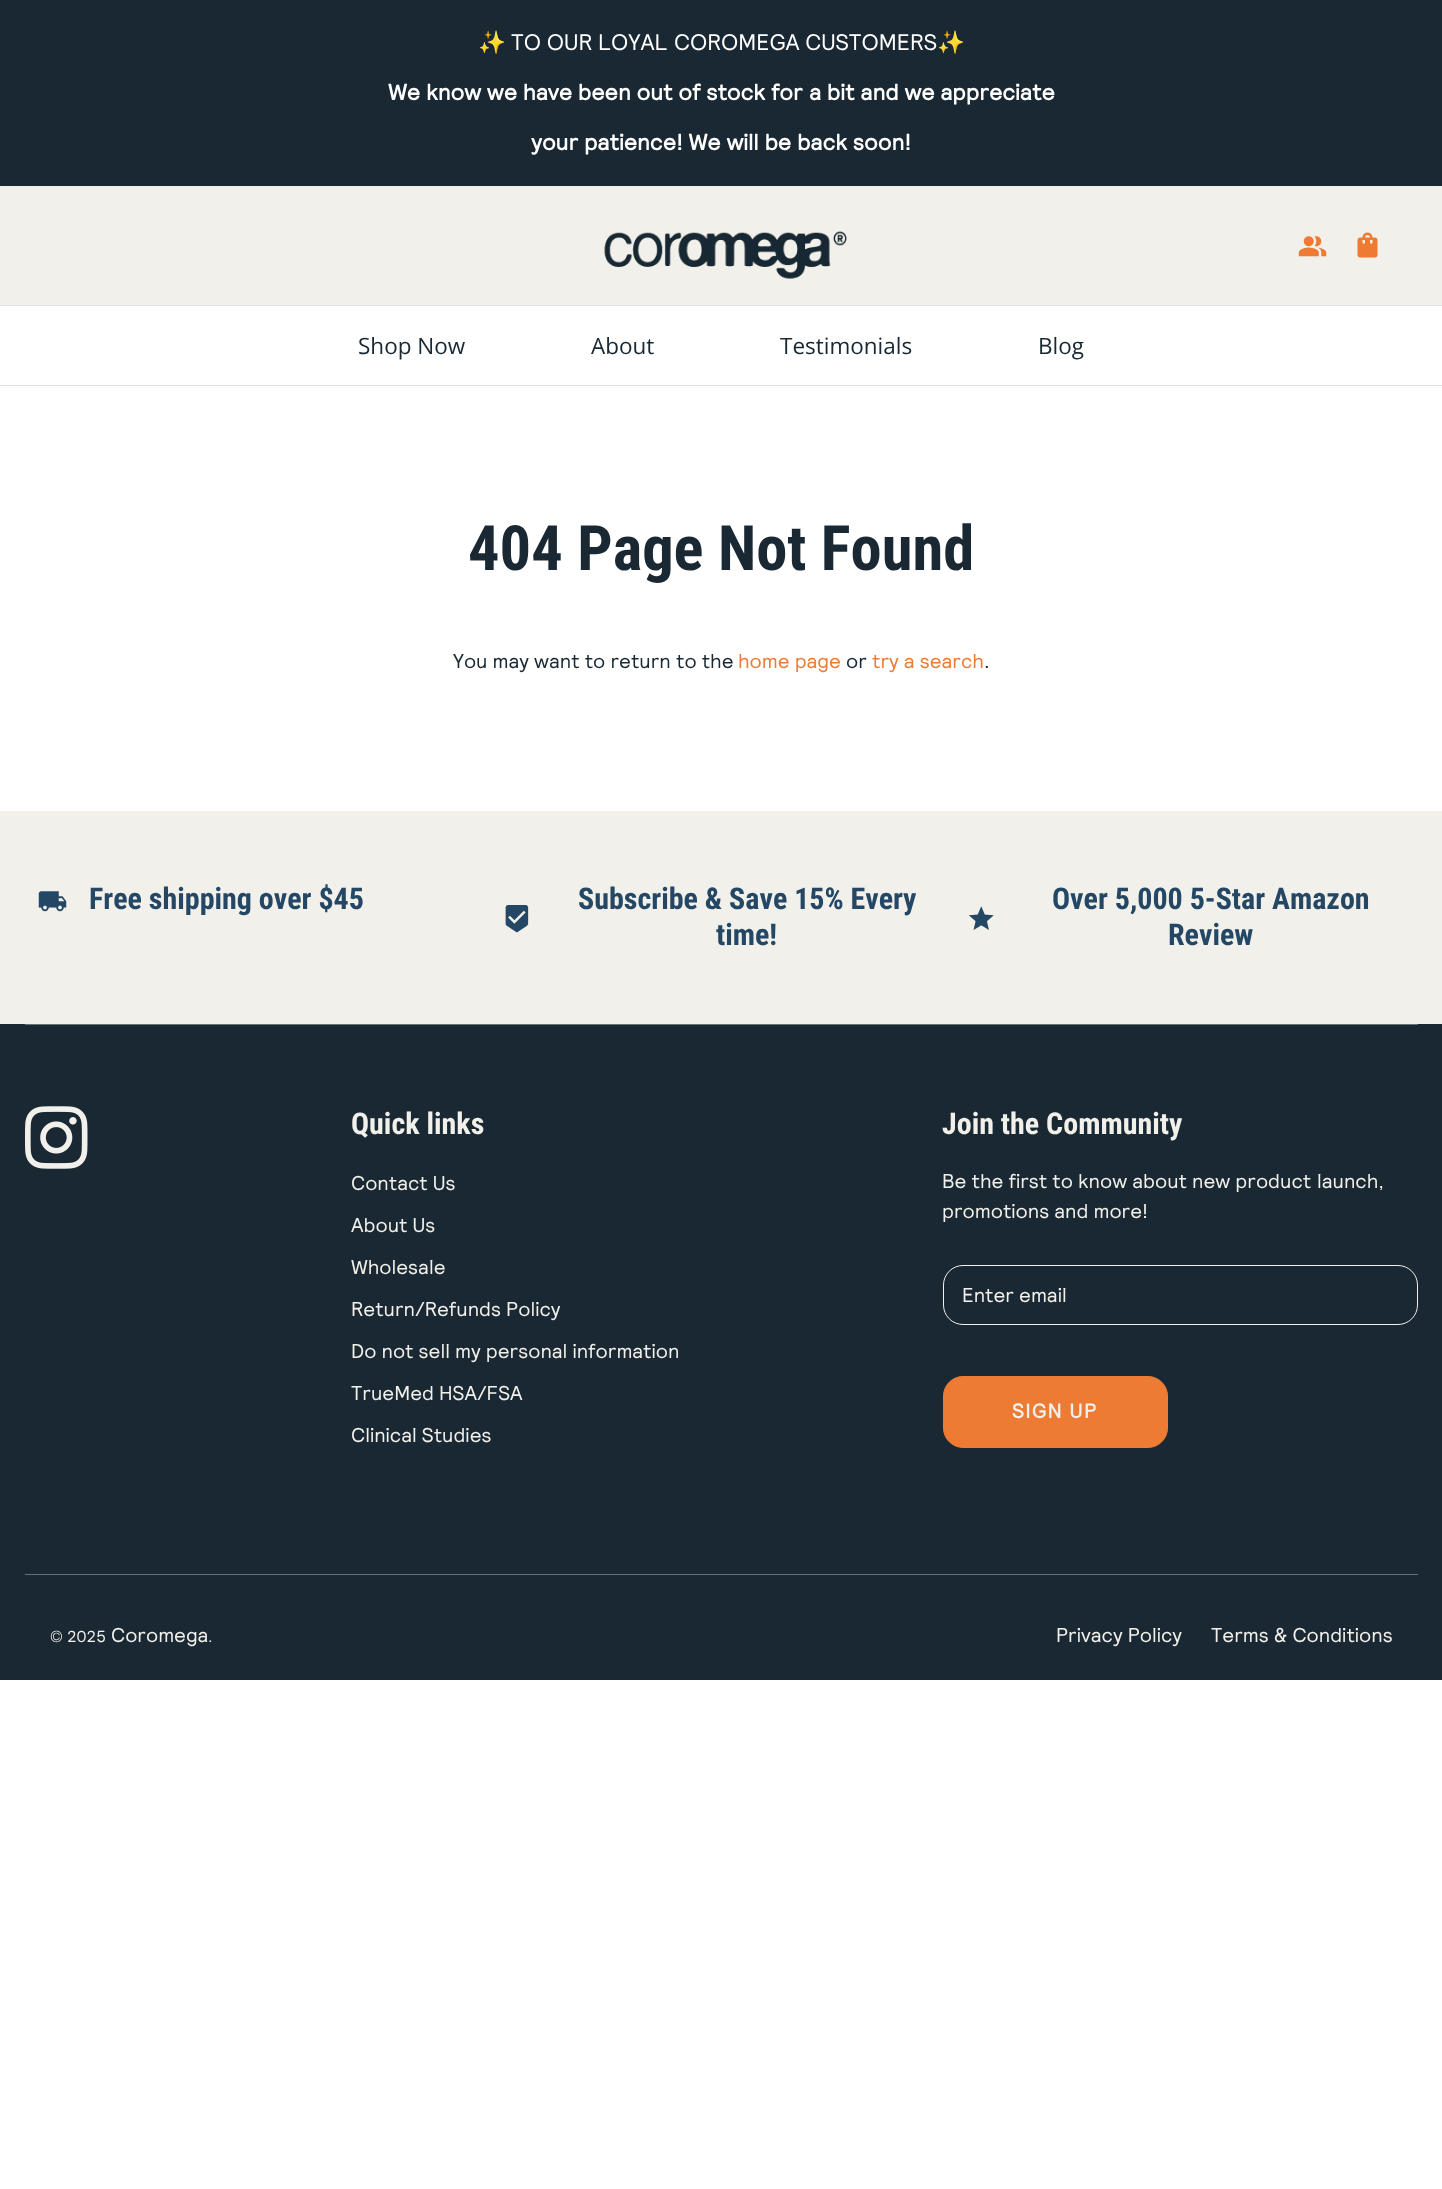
<svg xmlns="http://www.w3.org/2000/svg" width="1442" height="2189">
	<style>*{font-kerning:none!important;font-variant-ligatures:none!important}</style>
	<rect width="100%" height="100%" fill="#FFFFFF" />
	<rect x="0" y="0" width="1442" height="186" fill="#192833" />
	<text x="478" y="50" font-family="Noto Color Emoji" font-size="22.5" fill="#FFFFFF">✨</text>
	<text x="511" y="50" font-family="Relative" font-size="22.5" fill="#FFFFFF">TO OUR LOYAL</text>
	<text x="674" y="50" font-family="Relative" font-size="22.5" fill="#FFFFFF">COROMEGA CUSTOMERS</text>
	<text x="937" y="50" font-family="Noto Color Emoji" font-size="22.5" fill="#FFFFFF">✨</text>
	<g font-family="Relative" font-size="22.5" font-weight="700" fill="#FFFFFF">
		<text x="388" y="100">We know we have been out of stock for</text>
		<text x="809" y="100">a bit and we appreciate</text>
		<text x="531" y="150">your patience! We will be back soon!</text>
	</g>
	<rect x="0" y="186" width="1442" height="119" fill="#F2F0EA" />
	<rect x="0" y="305" width="1442" height="1" fill="#DFE3E8" />
	<image x="604" y="231" width="243" height="48" href="assets/img1.png" />
	<image x="1298" y="236" width="29" height="21" href="assets/img2.png" />
	<image x="1357" y="232" width="21" height="26" href="assets/img3.png" />
	<rect x="0" y="385" width="1442" height="1" fill="#DFE3E8" />
	<g font-family="Open Sans" font-size="22.5" fill="#192833">
		<text x="358" y="354">Shop Now</text>
		<text x="591" y="354">About</text>
		<text x="780" y="354">Testimonials</text>
		<text x="1038" y="354">Blog</text>
	</g>
	<text x="468" y="570" font-family="Roboto Condensed" font-size="62.5" font-weight="700" fill="#192833">404 Page Not Found</text>
	<text x="453" y="668" font-family="Relative" font-size="20" fill="#192833">You may want to return</text>
	<text x="676" y="668" font-family="Relative" font-size="20" fill="#192833">to the</text>
	<text x="738" y="668" font-family="Relative" font-size="20" fill="#ED7B34">home page</text>
	<text x="846" y="668" font-family="Relative" font-size="20" fill="#192833">or</text>
	<text x="872" y="668" font-family="Relative" font-size="20" fill="#ED7B34">try a search</text>
	<text x="984" y="668" font-family="Relative" font-size="20" fill="#192833">.</text>
	<rect x="0" y="1024" width="1442" height="656" fill="#192833" />
	<rect x="0" y="811" width="1442" height="213" fill="#F2F0EA" />
	<image x="38" y="891" width="29" height="21" href="assets/img4.png" />
	<text x="89" y="909" font-family="Roboto Condensed" font-size="30" font-weight="700" fill="#234764">Free shipping over $45</text>
	<image x="505" y="905" width="24" height="28" href="assets/img5.png" />
	<g font-family="Roboto Condensed" font-size="30" font-weight="700" fill="#234764">
		<text x="578" y="909">Subscribe &amp; Save 15% Every</text>
		<text x="716" y="945">time!</text>
	</g>
	<image x="968" y="906" width="26" height="24" href="assets/img6.png" />
	<g font-family="Roboto Condensed" font-size="30" font-weight="700" fill="#234764">
		<text x="1052" y="909">Over 5,000 5-Star Amazon</text>
		<text x="1168" y="945">Review</text>
	</g>
	<rect x="25" y="1024" width="1393" height="1" fill="#677075" />
	<image x="25" y="1106" width="63" height="63" href="assets/img7.png" />
	<text x="351" y="1134" font-family="Roboto Condensed" font-size="30" font-weight="700" fill="#F2F0EA">Quick links</text>
	<g font-family="Relative" font-size="20" fill="#F2F0EA">
		<text x="351" y="1190">Contact Us</text>
		<text x="351" y="1232">About Us</text>
		<text x="351" y="1274">Wholesale</text>
		<text x="351" y="1316">Return/Refunds Policy</text>
		<text x="351" y="1358">Do not sell my personal information</text>
		<text x="351" y="1400">TrueMed HSA/FSA</text>
		<text x="351" y="1442">Clinical Studies</text>
	</g>
	<text x="942" y="1134" font-family="Roboto Condensed" font-size="30" font-weight="700" fill="#F2F0EA">Join the Community</text>
	<g font-family="Relative" font-size="20" fill="#F2F0EA">
		<text x="942" y="1188">Be the first to know about new product</text>
		<text x="1317" y="1188">launch,</text>
		<text x="942" y="1218">promotions and more!</text>
	</g>
	<rect x="943.5" y="1265.5" width="474" height="59" rx="19.5" fill="none" stroke="#F2F0EA" />
	<text x="962" y="1302" font-family="Relative" font-size="20" fill="#F2F0EA">Enter email</text>
	<rect x="943.5" y="1376.5" width="224" height="71" rx="19.5" fill="#ED7B34" stroke="#ED7B34" />
	<text x="1012" y="1418" font-family="Relative" font-size="20" font-weight="700" letter-spacing="1.5" fill="#F2F0EA">SIGN UP</text>
	<rect x="25" y="1574" width="1393" height="1" fill="#677075" />
	<text x="50" y="1642" font-family="Relative" font-size="16" fill="#F2F0EA">© 2025</text>
	<text x="111" y="1642" font-family="Relative" font-size="20" fill="#F2F0EA">Coromega</text>
	<text x="208" y="1642" font-family="Relative" font-size="16" fill="#F2F0EA">.</text>
	<g font-family="Relative" font-size="20" fill="#F2F0EA">
		<text x="1056" y="1642">Privacy Policy</text>
		<text x="1211" y="1642">Terms &amp; Conditions</text>
	</g>
</svg>
